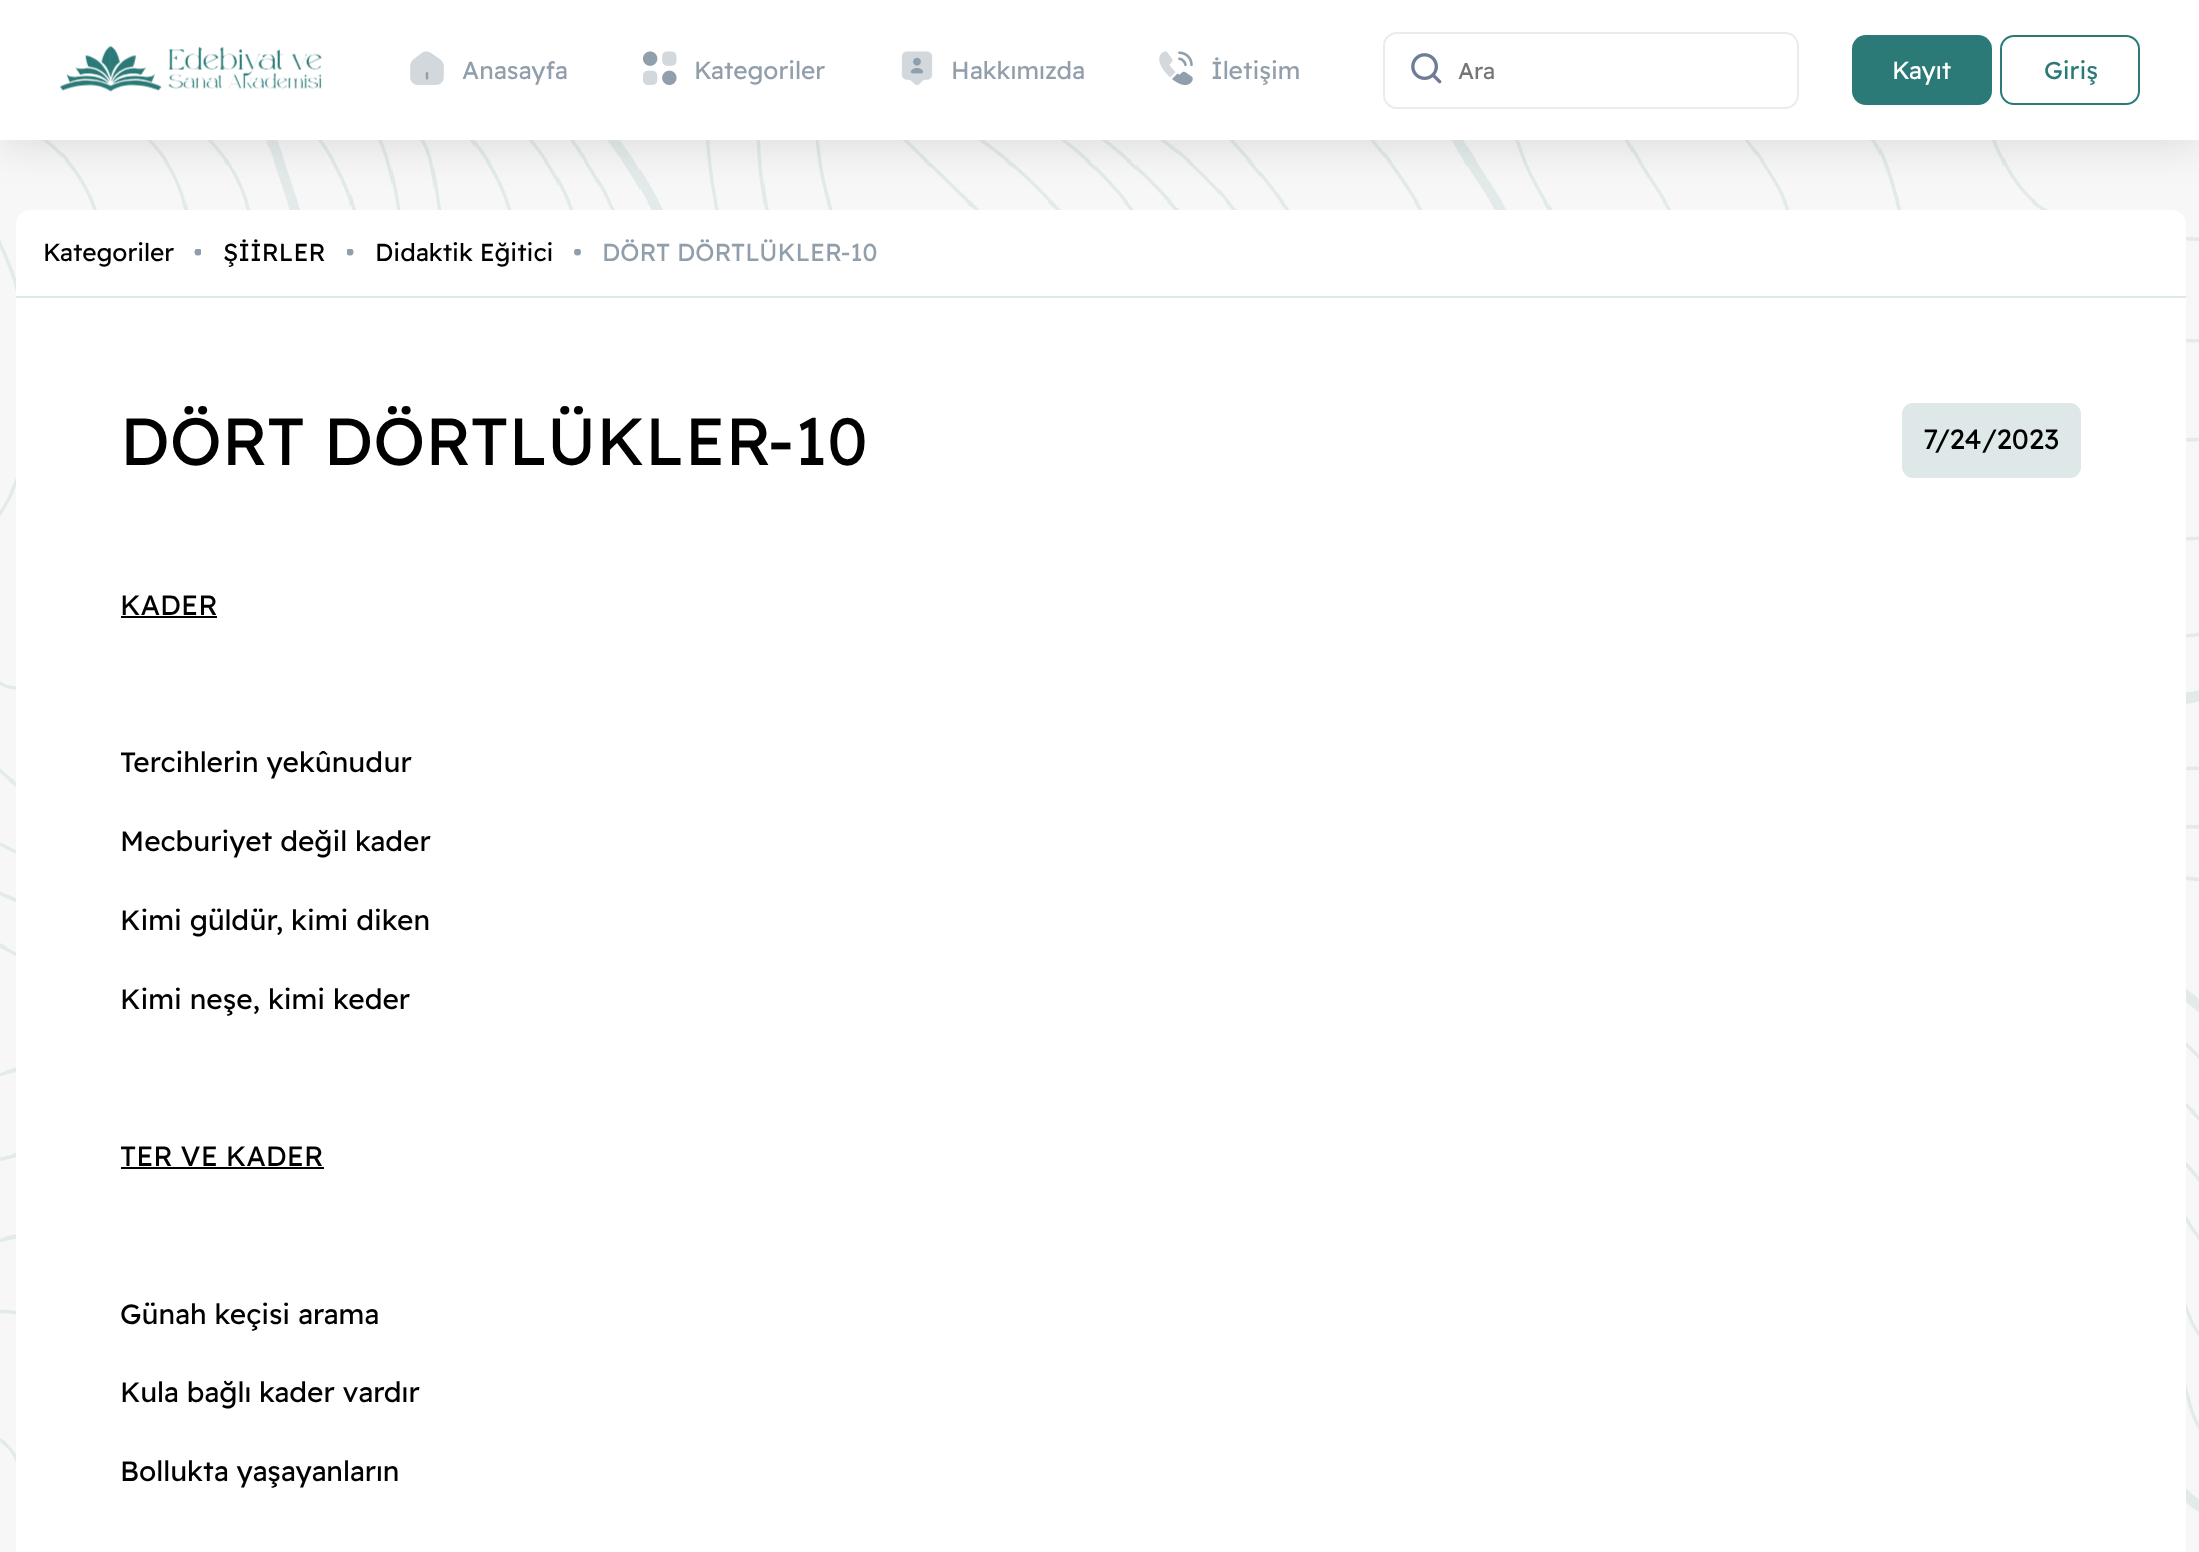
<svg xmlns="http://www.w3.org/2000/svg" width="2199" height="1552">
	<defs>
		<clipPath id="clip1"><rect x="194" y="249" width="7" height="7" /></clipPath>
		<clipPath id="clip2"><rect x="347" y="249" width="7" height="7" /></clipPath>
		<clipPath id="clip3"><rect x="574" y="249" width="7" height="7" /></clipPath>
	</defs>
	<rect width="100%" height="100%" fill="#F7F7F7" />
	<image x="0" y="140" width="2199" height="1372" href="assets/img7.png" />
	<rect x="0" y="7" width="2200" height="140" fill="#000000" fill-opacity="0.1" filter="blur(20px)" />
	<rect x="0" y="0" width="2199" height="140" fill="#FFFFFF" />
	<image x="59" y="45" width="263" height="47" href="assets/img1.png" />
	<image x="410" y="51" width="34" height="34" href="assets/img2.png" />
	<text x="462" y="79" font-family="Readex Pro" font-size="24.5" fill="#919EAB">Anasayfa</text>
	<image x="643" y="51" width="34" height="34" href="assets/img3.png" />
	<text x="694" y="79" font-family="Readex Pro" font-size="24.5" fill="#919EAB">Kategoriler</text>
	<image x="901" y="51" width="32" height="34" href="assets/img4.png" />
	<text x="951" y="79" font-family="Readex Pro" font-size="24.5" fill="#919EAB">Hakkımızda</text>
	<image x="1159" y="51" width="34" height="34" href="assets/img5.png" />
	<text x="1211" y="79" font-family="Readex Pro" font-size="24.5" fill="#919EAB">İletişim</text>
	<rect x="1384" y="33" width="414" height="75" rx="13" fill="none" stroke="#E9ECEE" stroke-width="2" />
	<image x="1411" y="53" width="31" height="31" href="assets/img6.png" />
	<text x="1458" y="79" font-family="Readex Pro" font-size="23" fill="#757575">Ara</text>
	<rect x="1852" y="35" width="140" height="70" rx="14" fill="#2B7A77" />
	<text x="1892" y="79" font-family="Readex Pro" font-size="24.5" fill="#FFFFFF">Kayıt</text>
	<rect x="2001" y="36" width="138" height="68" rx="13" fill="none" stroke="#2B7A77" stroke-width="2" />
	<text x="2044" y="79" font-family="Readex Pro" font-size="24.5" fill="#2B7A77">Giriş</text>
	<path d="M30 210H2172C2179.5 210 2186 216.5 2186 224V298H16V224C16 216.5 22.5 210 30 210Z" fill="#FFFFFF" />
	<rect x="16" y="296" width="2170" height="2" fill="#DFE8E8" />
	<text x="43" y="261" font-family="Readex Pro" font-size="24.5" fill="#000000">Kategoriler</text>
	<g clip-path="url(#clip1)">
		<circle cx="198" cy="252" r="3.5" fill="#919EAB" />
	</g>
	<text x="223" y="261" font-family="Readex Pro" font-size="24.5" fill="#000000">ŞİİRLER</text>
	<g clip-path="url(#clip2)">
		<circle cx="350" cy="252" r="3.5" fill="#919EAB" />
	</g>
	<text x="375" y="261" font-family="Readex Pro" font-size="24.5" fill="#000000">Didaktik Eğitici</text>
	<g clip-path="url(#clip3)">
		<circle cx="577.5" cy="252" r="3.5" fill="#919EAB" />
	</g>
	<text x="602" y="261" font-family="Readex Pro" font-size="24.5" fill="#919EAB">DÖRT DÖRTLÜKLER-10</text>
	<rect x="16" y="298" width="2170" height="1254" fill="#FFFFFF" />
	<text x="120" y="465" font-family="Readex Pro" font-size="66.5" fill="#000000">DÖRT DÖRTLÜKLER-10</text>
	<rect x="1902" y="403" width="179" height="75" rx="11" fill="#DFE8E8" />
	<g font-family="Readex Pro" font-size="28" fill="#000000">
		<text x="1923" y="449">7/24/2023</text>
		<text x="120" y="615">KADER</text>
	</g>
	<rect x="121" y="616" width="96" height="2" fill="#000000" />
	<g font-family="Readex Pro" font-size="28" fill="#000000">
		<text x="120" y="772">Tercihlerin yekûnudur</text>
		<text x="120" y="851">Mecburiyet değil kader</text>
		<text x="120" y="930">Kimi güldür, kimi diken</text>
		<text x="120" y="1009">Kimi neşe, kimi keder</text>
		<text x="120" y="1166">TER VE KADER</text>
	</g>
	<rect x="121" y="1167" width="203" height="2" fill="#000000" />
	<g font-family="Readex Pro" font-size="28" fill="#000000">
		<text x="120" y="1324">Günah keçisi arama</text>
		<text x="120" y="1402">Kula bağlı kader vardır</text>
		<text x="120" y="1481">Bollukta yaşayanların</text>
	</g>
</svg>
